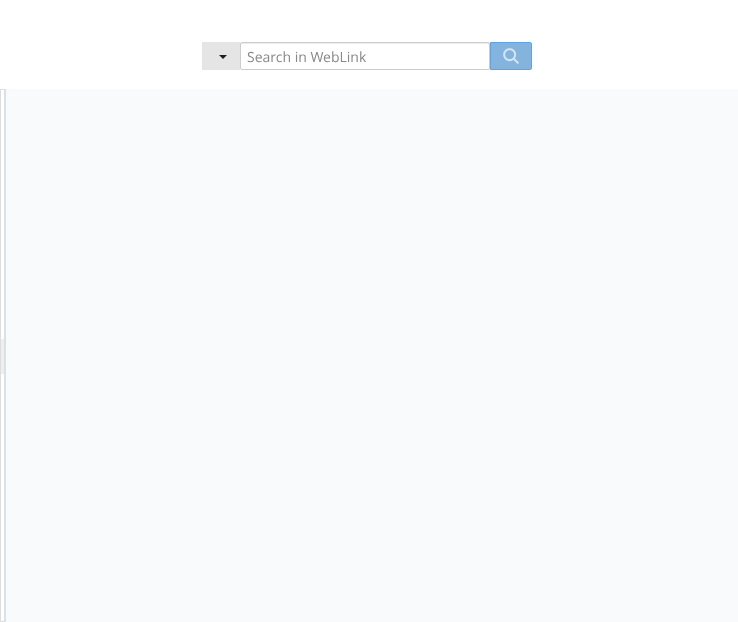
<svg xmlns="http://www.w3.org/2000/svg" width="738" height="622">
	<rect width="100%" height="100%" fill="#FFFFFF" />
	<rect x="202" y="42" width="38" height="28" fill="#E5E5E5" />
	<path d="M219 55H227L223 59Z" fill="#202020" />
	<path d="M242 44H488L489 46V44C489 43 489 43 488 43H242C241 43 241 43 241 44V45Z" fill="#ECECEC" />
	<rect x="240.5" y="42.5" width="249" height="27" rx="1.5" fill="none" stroke="#CCCCCC" />
	<text x="247" y="62" font-family="Open Sans" font-size="14" fill="#898989">Search in WebLink</text>
	<path d="M490.5 42.5H530C531 42.5 531.5 43 531.5 44V68C531.5 69 531 69.5 530 69.5H490.5Z" fill="#84B4DD" stroke="#5BA5E6" />
	<image x="503" y="48" width="16" height="16" href="assets/img1.png" />
	<rect x="0" y="89" width="5" height="1" fill="#D5E2E6" />
	<rect x="4" y="89" width="1" height="533" fill="#D5E2E6" />
	<rect x="0" y="621" width="5" height="1" fill="#D5E2E6" />
	<rect x="0" y="89" width="1" height="533" fill="#DDDDDD" />
	<rect x="1" y="339" width="3" height="35" fill="#EEEEEE" />
	<rect x="5" y="89" width="1" height="533" fill="#D5E2E6" />
	<rect x="6" y="89" width="732" height="533" fill="#F8FAFC" />
</svg>
